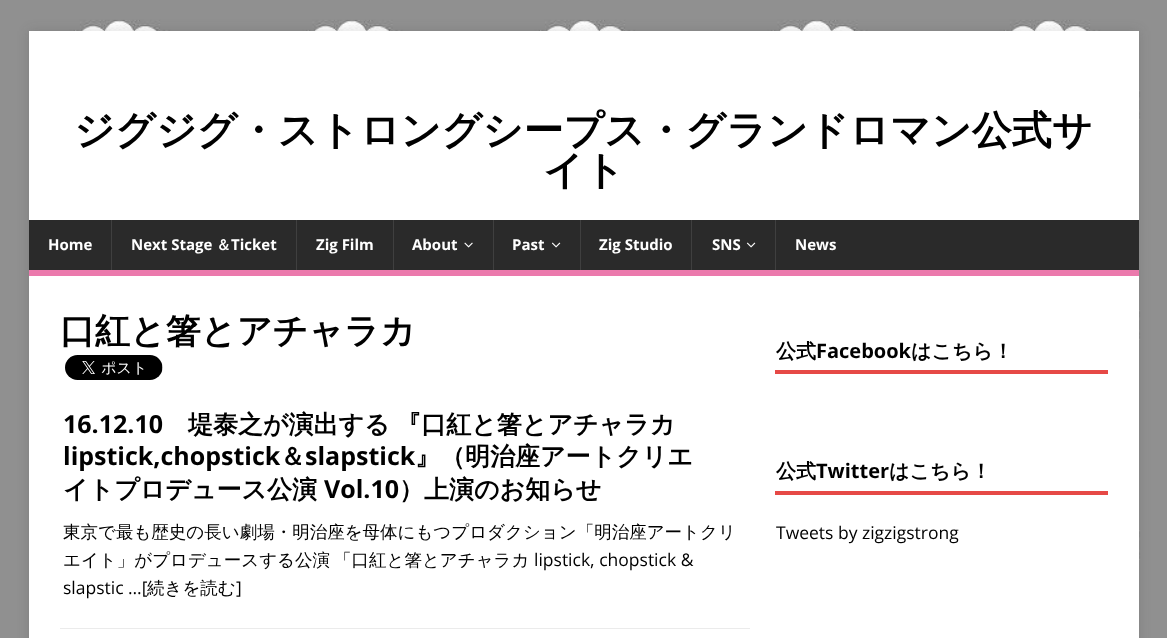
<svg xmlns="http://www.w3.org/2000/svg" width="1167" height="638">
	<rect width="100%" height="100%" fill="#FFFFFF" />
	<image x="0" y="0" width="1167" height="638" href="assets/img1.png" />
	<rect x="29" y="31" width="1110" height="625" fill="#323232" fill-opacity="0.17" filter="blur(6px)" />
	<rect x="29" y="31" width="1110" height="189" fill="#FFFFFF" />
	<g font-family="WenQuanYi Zen Hei" font-size="40" font-weight="700" fill="#000000">
		<text x="74" y="144">ジグジグ・ストロングシープス・グランドロマン公式サ</text>
		<text x="543" y="184">イト</text>
	</g>
	<rect x="29" y="220" width="1110" height="50" fill="#2A2A2A" />
	<rect x="29" y="270" width="1110" height="6" fill="#EB79AC" />
	<text x="48" y="250" font-family="Open Sans" font-size="15" font-weight="700" fill="#FFFFFF">Home</text>
	<rect x="111" y="220" width="1" height="50" fill="#3F3F3F" />
	<text x="131" y="250" font-family="Open Sans" font-size="15" font-weight="700" fill="#FFFFFF">Next Stage</text>
	<text x="216" y="250" font-family="WenQuanYi Zen Hei" font-size="15" font-weight="700" fill="#FFFFFF">＆</text>
	<text x="231" y="250" font-family="Open Sans" font-size="15" font-weight="700" fill="#FFFFFF">Ticket</text>
	<rect x="296" y="220" width="1" height="50" fill="#3F3F3F" />
	<text x="316" y="250" font-family="Open Sans" font-size="15" font-weight="700" fill="#FFFFFF">Zig Film</text>
	<rect x="393" y="220" width="1" height="50" fill="#3F3F3F" />
	<text x="412" y="250" font-family="Open Sans" font-size="15" font-weight="700" fill="#FFFFFF">About</text>
	<image x="464" y="242" width="9" height="6" href="assets/img2.png" />
	<rect x="493" y="220" width="1" height="50" fill="#3F3F3F" />
	<text x="512" y="250" font-family="Open Sans" font-size="15" font-weight="700" fill="#FFFFFF">Past</text>
	<image x="551" y="242" width="10" height="6" href="assets/img3.png" />
	<rect x="580" y="220" width="1" height="50" fill="#3F3F3F" />
	<text x="599" y="250" font-family="Open Sans" font-size="15" font-weight="700" fill="#FFFFFF">Zig Studio</text>
	<rect x="691" y="220" width="1" height="50" fill="#3F3F3F" />
	<text x="712" y="250" font-family="Open Sans" font-size="15" font-weight="700" fill="#FFFFFF">SNS</text>
	<image x="746" y="242" width="10" height="6" href="assets/img3.png" />
	<rect x="775" y="220" width="1" height="50" fill="#3F3F3F" />
	<text x="795" y="250" font-family="Open Sans" font-size="15" font-weight="700" fill="#FFFFFF">News</text>
	<rect x="29" y="276" width="1110" height="362" fill="#FFFFFF" />
	<text x="60" y="343" font-family="WenQuanYi Zen Hei" font-size="35" font-weight="700" fill="#000000">口紅と箸とアチャラカ</text>
	<image x="65" y="355" width="98" height="25" href="assets/img4.png" />
	<rect x="60" y="628" width="690" height="1" fill="#EBEBEB" />
	<text x="63" y="433" font-family="Open Sans" font-size="25" font-weight="700" fill="#000000">16.12.10</text>
	<text x="188" y="433" word-spacing="-1" font-family="WenQuanYi Zen Hei" font-size="25" font-weight="700" fill="#000000">堤泰之が演出する 『口紅と箸とアチャラカ</text>
	<text x="63" y="465" font-family="Open Sans" font-size="25" font-weight="700" fill="#000000">lipstick,chopstick</text>
	<text x="280" y="465" font-family="WenQuanYi Zen Hei" font-size="25" font-weight="700" fill="#000000">＆</text>
	<text x="305" y="465" font-family="Open Sans" font-size="25" font-weight="700" fill="#000000">slapstick</text>
	<g font-family="WenQuanYi Zen Hei" font-size="25" font-weight="700" fill="#000000">
		<text x="415" y="465">』（明治座アートクリエ</text>
		<text x="63" y="498">イトプロデュース公演</text>
	</g>
	<text x="324" y="498" font-family="Open Sans" font-size="25" font-weight="700" fill="#000000">Vol.10</text>
	<text x="399" y="498" font-family="WenQuanYi Zen Hei" font-size="25" font-weight="700" fill="#000000">）上演のお知らせ</text>
	<g font-family="WenQuanYi Zen Hei" font-size="17.5" font-weight="500" fill="#000000">
		<text x="63" y="538">東京で最も歴史の長い劇場・明治座を母体にもつプロダクション「明治座アートクリ</text>
		<text x="63" y="566">エイト」がプロデュースする公演</text>
		<text x="334" y="566">「口紅と箸とアチャラカ</text>
	</g>
	<g font-family="Open Sans" font-size="17.5" fill="#000000">
		<text x="534" y="566">lipstick, chopstick &amp;</text>
		<text x="63" y="594">slapstic …[</text>
	</g>
	<text x="147" y="594" font-family="WenQuanYi Zen Hei" font-size="17.5" font-weight="500" fill="#000000">続きを読む</text>
	<text x="236" y="594" font-family="Open Sans" font-size="17.5" fill="#000000">]</text>
	<rect x="775" y="370" width="333" height="4" fill="#E64946" />
	<text x="776" y="358" font-family="WenQuanYi Zen Hei" font-size="20" font-weight="700" fill="#000000">公式</text>
	<text x="816" y="358" font-family="Open Sans" font-size="20" font-weight="700" fill="#000000">Facebook</text>
	<text x="911" y="358" font-family="WenQuanYi Zen Hei" font-size="20" font-weight="700" fill="#000000">はこちら！</text>
	<rect x="775" y="491" width="333" height="4" fill="#E64946" />
	<text x="776" y="478" font-family="WenQuanYi Zen Hei" font-size="20" font-weight="700" fill="#000000">公式</text>
	<text x="816" y="478" font-family="Open Sans" font-size="20" font-weight="700" fill="#000000">Twitter</text>
	<text x="889" y="478" font-family="WenQuanYi Zen Hei" font-size="20" font-weight="700" fill="#000000">はこちら！</text>
	<text x="776" y="539" font-family="Open Sans" font-size="17.5" fill="#000000">Tweets by zigzigstrong</text>
</svg>
